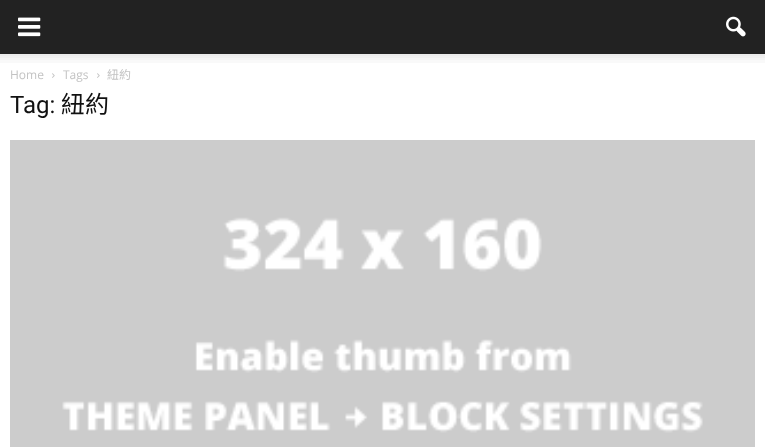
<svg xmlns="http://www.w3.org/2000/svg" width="765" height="447">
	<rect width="100%" height="100%" fill="#FFFFFF" />
	<rect x="0" y="0" width="765" height="54" fill="#222222" />
	<image x="18" y="17" width="23" height="20" href="assets/img1.png" />
	<image x="726" y="16" width="20" height="21" href="assets/img2.png" />
	<image x="0" y="54" width="765" height="9" href="assets/img3.png" />
	<text x="10" y="79" font-family="Open Sans" font-size="12" fill="#C3C3C3">Home</text>
	<image x="52" y="73" width="3" height="5" href="assets/img4.png" />
	<text x="63" y="79" font-family="Open Sans" font-size="12" fill="#C3C3C3">Tags</text>
	<image x="97" y="73" width="3" height="5" href="assets/img4.png" />
	<text x="107" y="79" font-family="Noto Sans CJK TC" font-size="12" fill="#C3C3C3">紐約</text>
	<text x="10" y="113" font-family="Roboto" font-size="24" fill="#111111">Tag:</text>
	<text x="61" y="113" font-family="Noto Sans CJK TC" font-size="24" fill="#111111">紐約</text>
	<image x="10" y="140" width="745" height="307" href="assets/img5.png" />
</svg>
